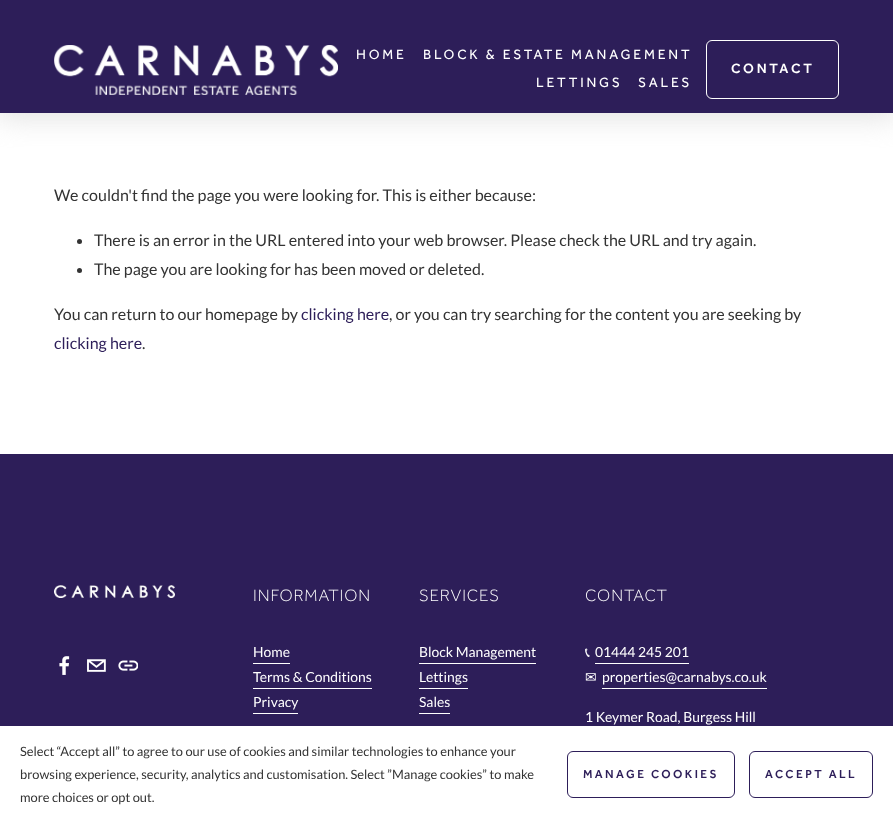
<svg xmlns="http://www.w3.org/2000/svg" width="893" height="823">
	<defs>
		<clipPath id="clip1"><rect x="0" y="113" width="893" height="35" /></clipPath>
	</defs>
	<rect width="100%" height="100%" fill="#FFFFFF" />
	<rect x="0" y="0" width="893" height="113" fill="#2D1E59" />
	<g clip-path="url(#clip1)">
		<rect x="-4" y="-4" width="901" height="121" fill="#E0E0E0" filter="blur(15px)" />
	</g>
	<image x="54" y="45" width="284" height="50" href="assets/img1.png" />
	<g font-family="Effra" font-size="13.9" letter-spacing="2.8" fill="#FFFFFF">
		<text x="356" y="59">HOME</text>
		<text x="423" y="59">BLOCK &amp; ESTATE MANAGEMENT</text>
		<text x="536" y="87">LETTINGS</text>
		<text x="638" y="87">SALES</text>
	</g>
	<rect x="706.5" y="40.5" width="132" height="58" rx="5.5" fill="none" stroke="#FFFFFF" />
	<text x="731" y="73" font-family="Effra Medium" font-size="13.9" font-weight="500" letter-spacing="2.8" fill="#FFFFFF">CONTACT</text>
	<text x="54" y="201" font-family="Lato" font-size="16.05" fill="#333333">We couldn't find the page you were looking for. This is either because:</text>
	<circle cx="79.5" cy="241.5" r="2.5" fill="#333333" />
	<text x="94" y="246" font-family="Lato" font-size="16.05" fill="#333333">There is an error in the URL entered into your web browser. Please check the URL and try again.</text>
	<circle cx="79.5" cy="270.5" r="2.5" fill="#333333" />
	<g font-family="Lato" font-size="16.05" fill="#333333">
		<text x="94" y="275">The page you are looking for has been moved or deleted.</text>
		<text x="54" y="320">You can return to our homepage by</text>
	</g>
	<text x="301" y="320" font-family="Lato" font-size="16.05" fill="#2D1E59">clicking here</text>
	<text x="389" y="320" font-family="Lato" font-size="16.05" fill="#333333">, or you can try searching for the content you are seeking by</text>
	<text x="54" y="349" font-family="Lato" font-size="16.05" fill="#2D1E59">clicking here</text>
	<text x="142" y="349" font-family="Lato" font-size="16.05" fill="#333333">.</text>
	<rect x="0" y="454" width="893" height="272" fill="#2D1E59" />
	<image x="54" y="585" width="121" height="13" href="assets/img2.png" />
	<text x="253" y="601" font-family="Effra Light" font-size="17" font-weight="300" letter-spacing="0.9" fill="#FFFFFF">INFORMATION</text>
	<rect x="253" y="663" width="37" height="1" fill="#FFFFFF" />
	<text x="253" y="657" font-family="Lato" font-size="13.9" fill="#FFFFFF">Home</text>
	<rect x="253" y="688" width="119" height="1" fill="#FFFFFF" />
	<text x="253" y="682" font-family="Lato" font-size="13.9" fill="#FFFFFF">Terms &amp; Conditions</text>
	<rect x="253" y="713" width="45" height="1" fill="#FFFFFF" />
	<text x="253" y="707" font-family="Lato" font-size="13.9" fill="#FFFFFF">Privacy</text>
	<text x="419" y="601" font-family="Effra Light" font-size="17" font-weight="300" letter-spacing="0.9" fill="#FFFFFF">SERVICES</text>
	<rect x="419" y="663" width="117" height="1" fill="#FFFFFF" />
	<text x="419" y="657" font-family="Lato" font-size="13.9" fill="#FFFFFF">Block Management</text>
	<rect x="419" y="688" width="49" height="1" fill="#FFFFFF" />
	<text x="419" y="682" font-family="Lato" font-size="13.9" fill="#FFFFFF">Lettings</text>
	<rect x="419" y="713" width="31" height="1" fill="#FFFFFF" />
	<text x="419" y="707" font-family="Lato" font-size="13.9" fill="#FFFFFF">Sales</text>
	<text x="585" y="601" font-family="Effra Light" font-size="17" font-weight="300" letter-spacing="0.9" fill="#FFFFFF">CONTACT</text>
	<text x="585" y="657" font-family="FreeSerif" font-size="13.9" fill="#FFFFFF">📞︎</text>
	<rect x="595" y="663" width="94" height="1" fill="#FFFFFF" />
	<text x="595" y="657" font-family="Lato" font-size="13.9" fill="#FFFFFF">01444 245 201</text>
	<text x="585" y="682" font-family="DejaVu Sans" font-size="13.9" fill="#FFFFFF">✉</text>
	<rect x="602" y="688" width="165" height="1" fill="#FFFFFF" />
	<g font-family="Lato" font-size="13.9" fill="#FFFFFF">
		<text x="602" y="682">properties@carnabys.co.uk</text>
		<text x="585" y="722">1 Keymer Road, Burgess Hill</text>
	</g>
	<image x="59" y="656" width="11" height="19" href="assets/img3.png" />
	<image x="87" y="659" width="19" height="13" href="assets/img4.png" />
	<image x="118" y="660" width="20" height="11" href="assets/img5.png" />
	<g font-family="Lato" font-size="12.85" fill="#333333">
		<text x="20" y="756">Select “Accept all” to agree to our use of cookies and similar technologies to enhance your</text>
		<text x="20" y="779">browsing experience, security, analytics and customisation. Select ”Manage cookies” to make</text>
		<text x="20" y="802">more choices or opt out.</text>
	</g>
	<rect x="567.5" y="751.5" width="167" height="46" rx="5.5" fill="none" stroke="#2D1E59" />
	<text x="583" y="778" font-family="Effra Medium" font-size="12" font-weight="500" letter-spacing="2.4" fill="#2D1E59">MANAGE COOKIES</text>
	<rect x="749.5" y="751.5" width="123" height="46" rx="5.5" fill="none" stroke="#2D1E59" />
	<text x="765" y="778" font-family="Effra Medium" font-size="12" font-weight="500" letter-spacing="2.4" fill="#2D1E59">ACCEPT ALL</text>
</svg>
